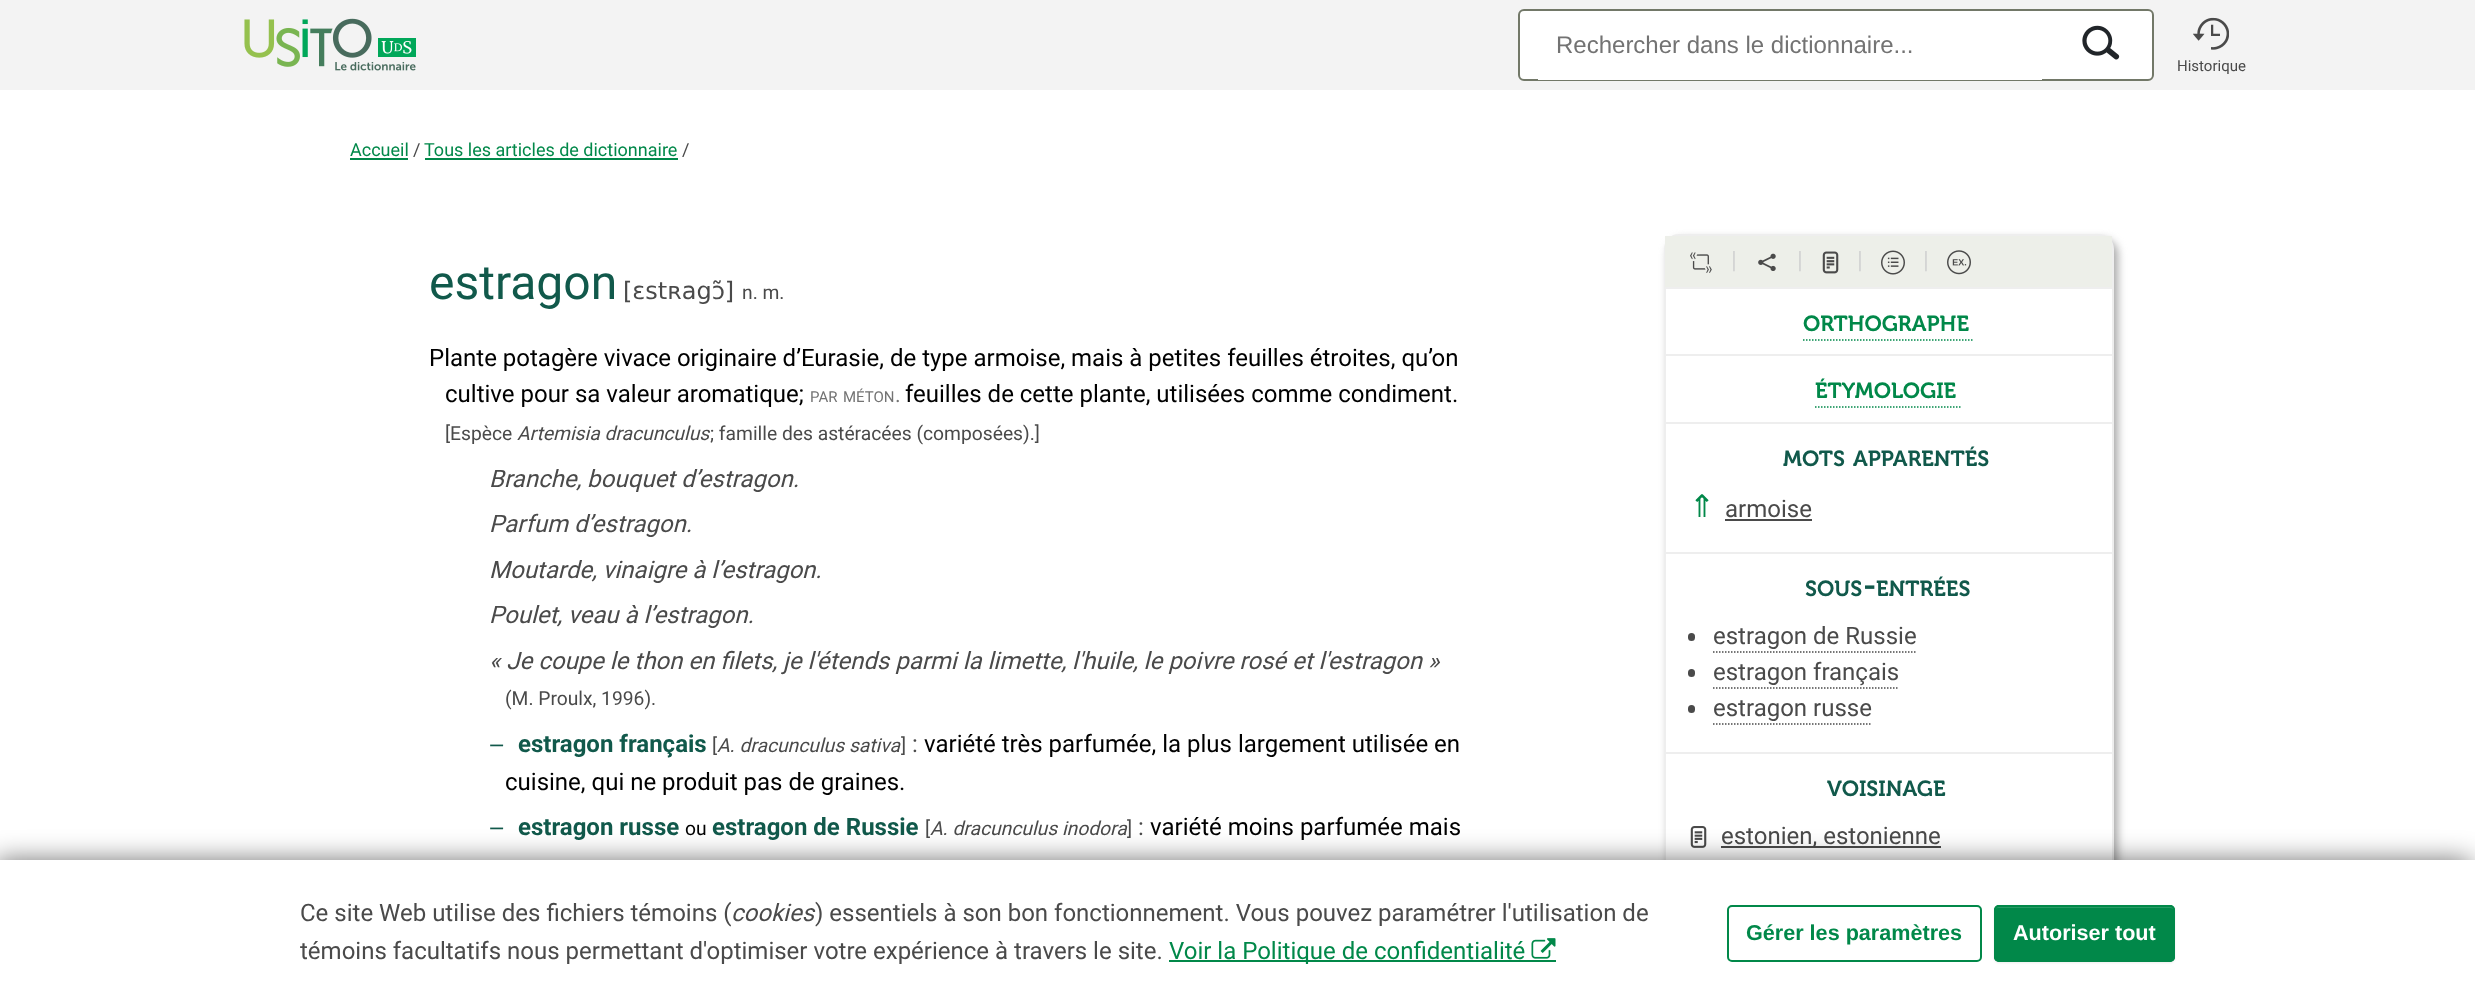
<svg xmlns="http://www.w3.org/2000/svg" width="2475" height="1004">
	<rect width="100%" height="100%" fill="#FFFFFF" />
	<rect x="0" y="0" width="2475" height="90" fill="#F3F3F3" />
	<image x="244" y="18" width="172" height="53" href="assets/img1.png" />
	<rect x="1519" y="10" width="634" height="70" rx="5" fill="#FFFFFF" stroke="#727868" stroke-width="2" />
	<rect x="1538" y="79" width="504" height="1" fill="#FFFFFF" />
	<text x="1556" y="53" font-family="Liberation Sans" font-size="24" fill="#737373">Rechercher dans le dictionnaire...</text>
	<image x="2082" y="25" width="38" height="35" href="assets/img2.png" />
	<image x="2193" y="17" width="36" height="33" href="assets/img3.png" />
	<text x="2177" y="71" font-family="Roboto" font-size="15" fill="#4A4A4A">Historique</text>
	<text x="350" y="156" font-family="Roboto" font-size="18" fill="#018849">Accueil</text>
	<rect x="350" y="158" width="58" height="2" fill="#018849" />
	<text x="413" y="156" font-family="Roboto" font-size="18" fill="#4A4A4A">/</text>
	<text x="424" y="156" font-family="Roboto" font-size="18" fill="#018849">Tous les articles de dictionnaire</text>
	<rect x="425" y="158" width="253" height="2" fill="#018849" />
	<text x="682" y="156" font-family="Roboto" font-size="18" fill="#4A4A4A">/</text>
	<text x="429" y="299" font-family="Roboto" font-size="48" fill="#11594B">estragon</text>
	<text x="623" y="299" font-family="DejaVu Sans" font-size="24" fill="#4A4A4A">[ɛstʀagɔ̃]</text>
	<text x="742" y="299" font-family="Roboto" font-size="19.25" fill="#4A4A4A">n. m.</text>
	<g font-family="Roboto" font-size="24" fill="#000000">
		<text x="429" y="366">Plante potagère vivace originaire d’Eurasie, de type armoise, mais à petites feuilles étroites, qu’on</text>
		<text x="445" y="402">cultive pour sa valeur aromatique;</text>
	</g>
	<g font-family="Roboto" font-size="15" fill="#737373">
		<text x="810" y="402">PAR</text>
		<text x="843" y="402">MÉTON</text>
	</g>
	<text x="895" y="402" font-family="Roboto" font-size="21.6" fill="#737373">.</text>
	<text x="905" y="402" font-family="Roboto" font-size="24" fill="#000000">feuilles de cette plante, utilisées comme condiment.</text>
	<text x="445" y="440" font-family="Roboto" font-size="19.25" fill="#4A4A4A">[Espèce</text>
	<text x="517" y="440" font-family="Roboto" font-size="19.25" font-style="italic" fill="#4A4A4A">Artemisia dracunculus</text>
	<text x="710" y="440" font-family="Roboto" font-size="19.25" fill="#4A4A4A">; famille des astéracées (composées).]</text>
	<g font-family="Roboto" font-size="24" font-style="italic" fill="#4A4A4A">
		<text x="489" y="487">Branche, bouquet d’estragon.</text>
		<text x="489" y="532">Parfum d’estragon.</text>
		<text x="489" y="578">Moutarde, vinaigre à l’estragon.</text>
		<text x="489" y="623">Poulet, veau à l’estragon.</text>
		<text x="489" y="669">« Je coupe le thon en filets, je l'étends parmi la limette, l'huile, le poivre rosé et l'estragon »</text>
	</g>
	<text x="505" y="705" font-family="Roboto" font-size="19.25" fill="#4A4A4A">(M. Proulx, 1996).</text>
	<text x="489" y="752" font-family="DejaVu Sans" font-size="24" fill="#11594B">‒</text>
	<text x="518" y="752" font-family="Roboto" font-size="24" font-weight="700" fill="#11594B">estragon français</text>
	<text x="712" y="752" font-family="Roboto" font-size="19.25" fill="#4A4A4A">[</text>
	<text x="717" y="752" font-family="Roboto" font-size="19.25" font-style="italic" fill="#4A4A4A">A. dracunculus sativa</text>
	<text x="901" y="752" font-family="Roboto" font-size="19.25" fill="#4A4A4A">]</text>
	<text x="912" y="752" font-family="Roboto" font-size="24" fill="#4A4A4A">:</text>
	<g font-family="Roboto" font-size="24" fill="#000000">
		<text x="924" y="752">variété très parfumée, la plus largement utilisée en</text>
		<text x="505" y="790">cuisine, qui ne produit pas de graines.</text>
	</g>
	<text x="489" y="835" font-family="DejaVu Sans" font-size="24" fill="#11594B">‒</text>
	<text x="518" y="835" font-family="Roboto" font-size="24" font-weight="700" fill="#11594B">estragon russe</text>
	<text x="685" y="835" font-family="Roboto" font-size="19.25" fill="#000000">ou</text>
	<text x="712" y="835" font-family="Roboto" font-size="24" font-weight="700" fill="#11594B">estragon de Russie</text>
	<text x="925" y="835" font-family="Roboto" font-size="19.25" fill="#4A4A4A">[</text>
	<text x="930" y="835" font-family="Roboto" font-size="19.25" font-style="italic" fill="#4A4A4A">A. dracunculus inodora</text>
	<text x="1127" y="835" font-family="Roboto" font-size="19.25" fill="#4A4A4A">]</text>
	<text x="1138" y="835" font-family="Roboto" font-size="24" fill="#4A4A4A">:</text>
	<text x="1150" y="835" font-family="Roboto" font-size="24" fill="#000000">variété moins parfumée mais</text>
	<rect x="1668" y="239" width="450" height="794" rx="15" fill="#AAAAAA" filter="blur(4.5px)" />
	<rect x="1665" y="235" width="448" height="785" rx="14" fill="#FFFFFF" stroke="#EEEEEE" stroke-width="2" />
	<rect x="1665" y="236" width="447" height="51" fill="#EDEFE9" />
	<image x="1690" y="252" width="22" height="21" href="assets/img4.png" />
	<text x="1731" y="268" font-family="Roboto" font-size="24" fill="#D3D3D3">|</text>
	<image x="1758" y="253" width="18" height="18" href="assets/img5.png" />
	<text x="1797" y="268" font-family="Roboto" font-size="24" fill="#D3D3D3">|</text>
	<image x="1822" y="251" width="17" height="23" href="assets/img6.png" />
	<text x="1857" y="268" font-family="Roboto" font-size="24" fill="#D3D3D3">|</text>
	<image x="1881" y="250" width="24" height="25" href="assets/img7.png" />
	<text x="1923" y="268" font-family="Roboto" font-size="24" fill="#D3D3D3">|</text>
	<image x="1947" y="250" width="24" height="25" href="assets/img8.png" />
	<rect x="1665" y="287" width="447" height="2" fill="#EEEEEE" />
	<text x="1803" y="331" font-family="'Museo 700'" font-size="21.75" font-weight="600" fill="#018849">ORTHOGRAPHE</text>
	<path d="M1803 340H1974" fill="none" stroke="#018849" stroke-width="1.5" stroke-dasharray="1.5 1.5" />
	<rect x="1665" y="354" width="447" height="2" fill="#EEEEEE" />
	<text x="1815" y="398" font-family="'Museo 700'" font-size="21.75" font-weight="600" fill="#018849">ÉTYMOLOGIE</text>
	<path d="M1815 407H1962" fill="none" stroke="#018849" stroke-width="1.5" stroke-dasharray="1.5 1.5" />
	<rect x="1665" y="422" width="447" height="2" fill="#EEEEEE" />
	<g font-family="'Museo 700'" font-size="21.75" font-weight="600" fill="#11594B">
		<text x="1783" y="466">MOTS</text>
		<text x="1853" y="466">APPARENTÉS</text>
	</g>
	<text x="1689" y="517" font-family="DejaVu Sans" font-size="31" fill="#018849">⇑</text>
	<text x="1725" y="517" font-family="Roboto" font-size="24" fill="#4A4A4A">armoise</text>
	<rect x="1725" y="519" width="87" height="2" fill="#4A4A4A" />
	<rect x="1665" y="552" width="447" height="2" fill="#EEEEEE" />
	<text x="1805" y="596" font-family="'Museo 700'" font-size="21.75" font-weight="600" fill="#11594B">SOUS</text>
	<text x="1863" y="596" font-family="'Museo 700'" font-size="31" font-weight="600" fill="#11594B">-</text>
	<text x="1876" y="596" font-family="'Museo 700'" font-size="21.75" font-weight="600" fill="#11594B">ENTRÉES</text>
	<rect x="1688" y="633" width="7" height="8" rx="3.5" fill="#4A4A4A" />
	<text x="1713" y="644" font-family="Roboto" font-size="24" fill="#4A4A4A">estragon de Russie</text>
	<path d="M1713 652H1917" fill="none" stroke="#4A4A4A" stroke-width="1.5" stroke-dasharray="1.5 1.5" />
	<rect x="1688" y="669" width="7" height="8" rx="3.5" fill="#4A4A4A" />
	<text x="1713" y="680" font-family="Roboto" font-size="24" fill="#4A4A4A">estragon français</text>
	<path d="M1713 688H1899" fill="none" stroke="#4A4A4A" stroke-width="1.5" stroke-dasharray="1.5 1.5" />
	<rect x="1688" y="705" width="7" height="8" rx="3.5" fill="#4A4A4A" />
	<text x="1713" y="716" font-family="Roboto" font-size="24" fill="#4A4A4A">estragon russe</text>
	<path d="M1713 724H1872" fill="none" stroke="#4A4A4A" stroke-width="1.5" stroke-dasharray="1.5 1.5" />
	<rect x="1665" y="752" width="447" height="2" fill="#EEEEEE" />
	<text x="1827" y="796" font-family="'Museo 700'" font-size="21.75" font-weight="600" fill="#11594B">VOISINAGE</text>
	<image x="1690" y="826" width="17" height="22" href="assets/img9.png" />
	<rect x="1721" y="846" width="220" height="2" fill="#4A4A4A" />
	<text x="1721" y="844" font-family="Roboto" font-size="24" fill="#4A4A4A">estonien, estonienne</text>
	<rect x="-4" y="860" width="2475" height="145" fill="#000000" fill-opacity="0.55" filter="blur(13.5px)" />
	<rect x="0" y="860" width="2475" height="144" fill="#FFFFFF" />
	<text x="300" y="921" font-family="Roboto" font-size="24" fill="#4A4A4A">Ce site Web utilise des fichiers témoins (</text>
	<text x="731" y="921" font-family="Roboto" font-size="24" font-style="italic" fill="#4A4A4A">cookies</text>
	<g font-family="Roboto" font-size="24" fill="#4A4A4A">
		<text x="815" y="921">) essentiels à son bon fonctionnement. Vous pouvez paramétrer l'utilisation de</text>
		<text x="300" y="959">témoins facultatifs nous permettant d'optimiser votre expérience à travers le site.</text>
	</g>
	<rect x="1169" y="960" width="387" height="2" fill="#018849" />
	<text x="1169" y="959" font-family="Roboto" font-size="24" fill="#018849">Voir la Politique de confidentialité</text>
	<image x="1531" y="938" width="25" height="21" href="assets/img10.png" />
	<rect x="1728" y="906" width="253" height="55" rx="4" fill="none" stroke="#018849" stroke-width="2" />
	<text x="1746" y="940" font-family="Liberation Sans" font-size="21.6" font-weight="700" fill="#018849">Gérer les paramètres</text>
	<rect x="1994" y="906" width="181" height="57" rx="5" fill="#000000" fill-opacity="0.07" filter="blur(1px)" />
	<rect x="1994" y="905" width="181" height="57" rx="5" fill="#018849" />
	<path d="M1998 908H2170C2172 908 2174 909 2174 911V909C2174 907 2173 906 2171 906H1998C1996 906 1995 907 1995 909V911C1995 909 1996 908 1998 908Z" fill="#279A64" />
	<rect x="1995" y="906" width="179" height="55" rx="4" fill="none" stroke="#018849" stroke-width="2" />
	<text x="2013" y="940" font-family="Liberation Sans" font-size="21.6" font-weight="700" fill="#FFFFFF">Autoriser tout</text>
</svg>
